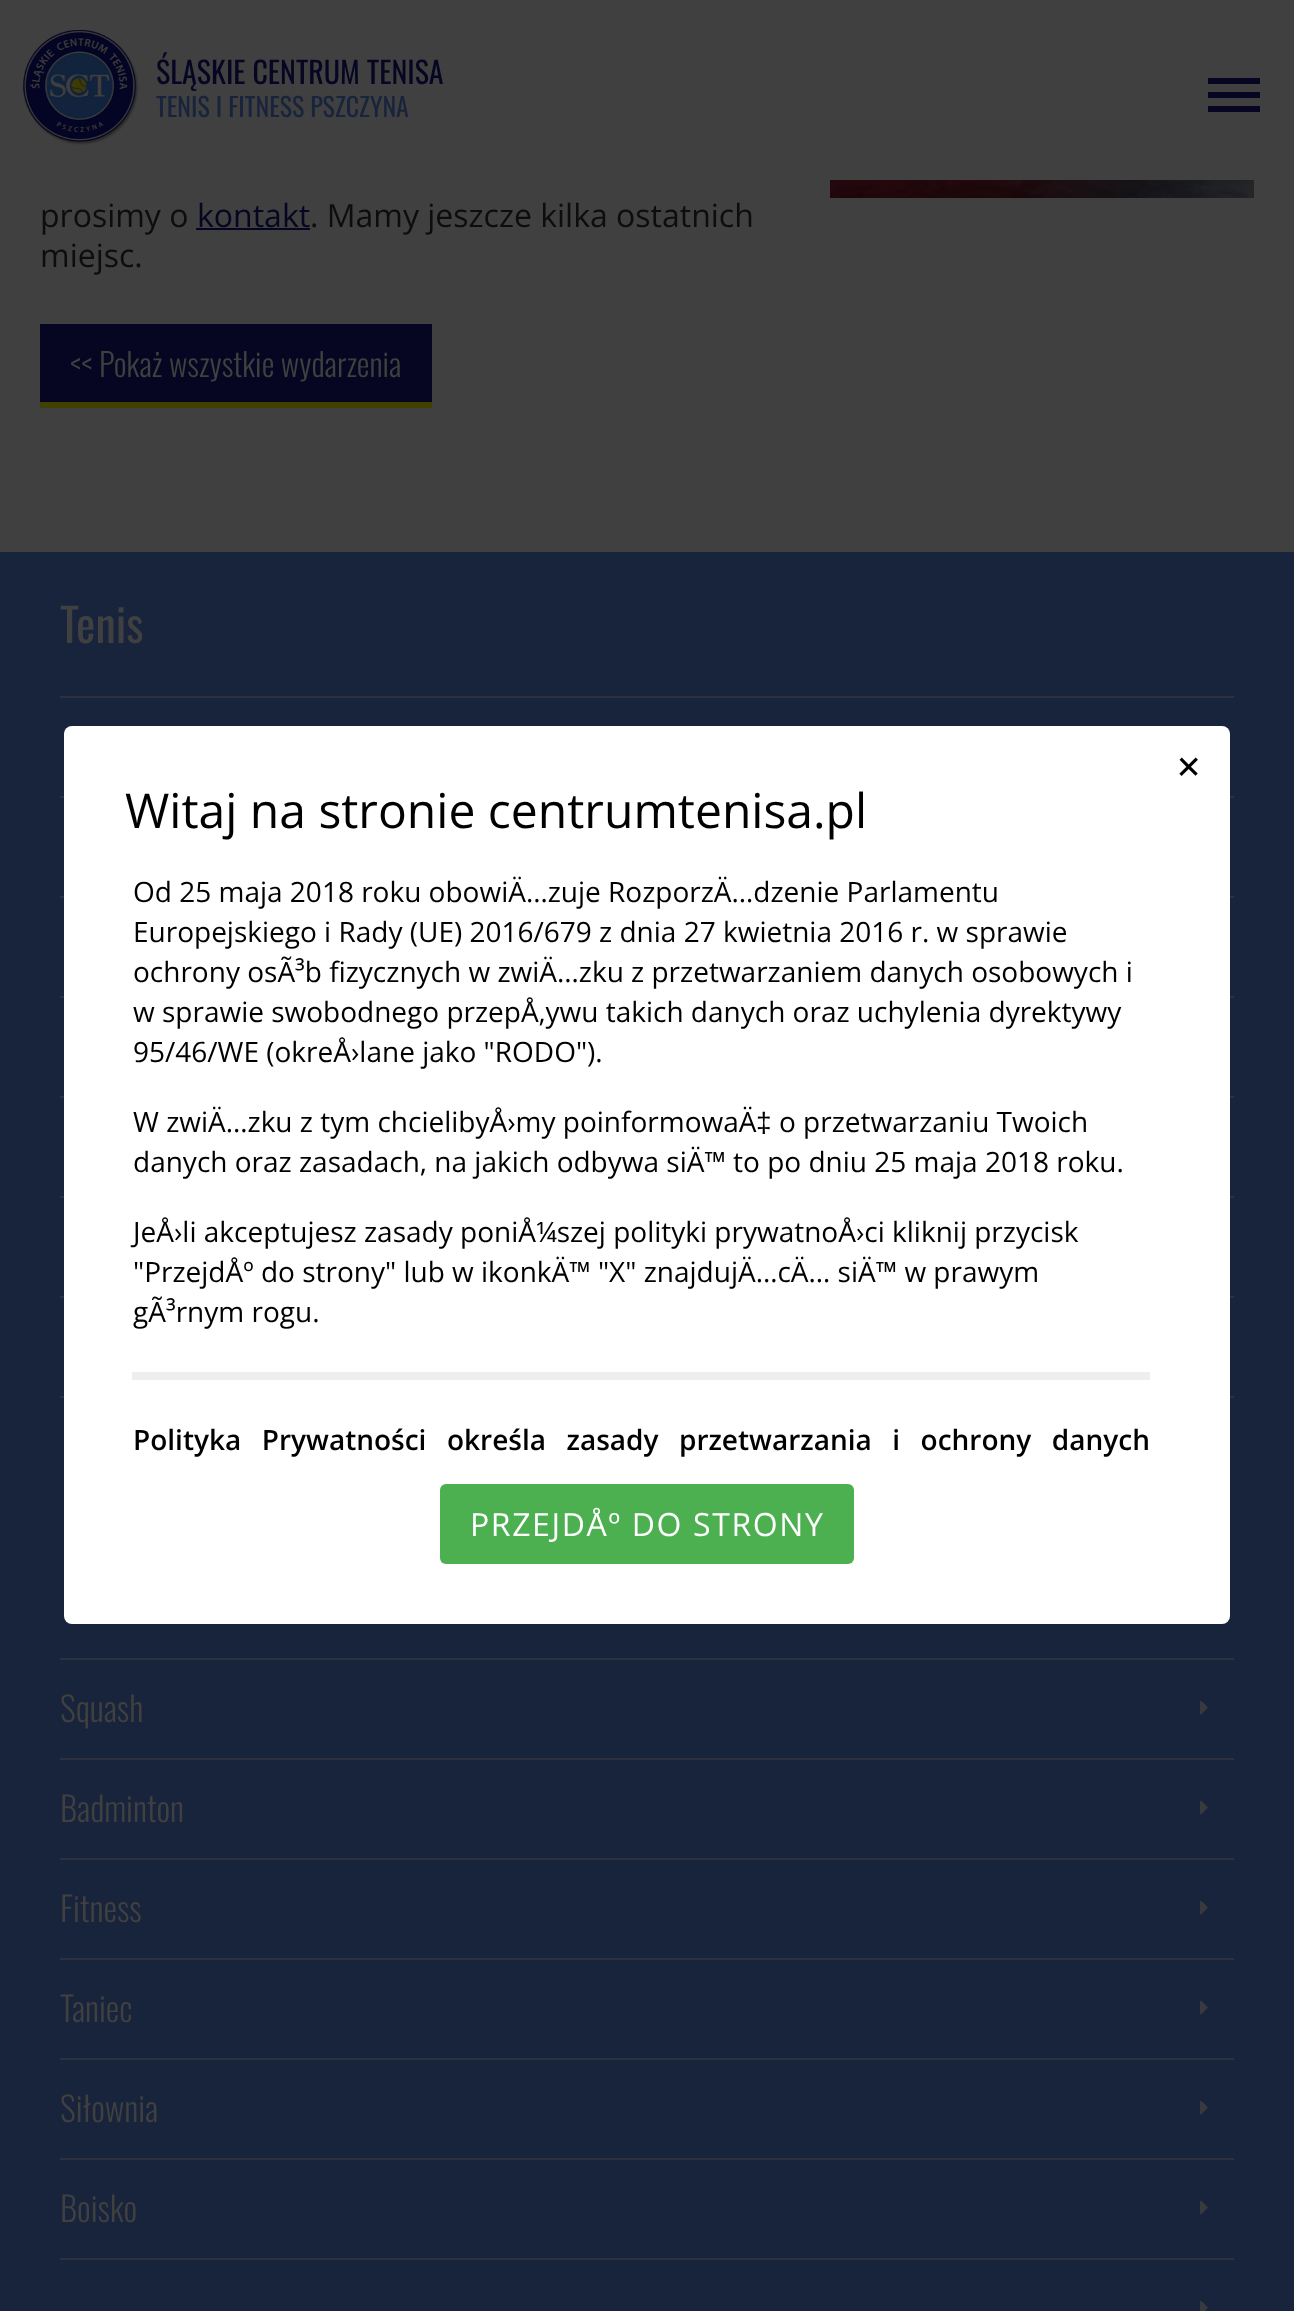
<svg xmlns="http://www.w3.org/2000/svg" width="1294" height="2311">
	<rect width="100%" height="100%" fill="#404040" />
	<image x="22" y="30" width="117" height="115" href="assets/img1.png" />
	<text x="156" y="84" font-family="Oswald" font-size="30" fill="#060622">ŚLĄSKIE CENTRUM TENISA</text>
	<text x="156" y="117" font-family="Oswald" font-size="26" fill="#18233C">TENIS I FITNESS PSZCZYNA</text>
	<rect x="1208" y="78" width="52" height="6" fill="#060622" />
	<rect x="1208" y="92" width="52" height="6" fill="#060622" />
	<rect x="1208" y="106" width="52" height="6" fill="#060622" />
	<image x="830" y="180" width="424" height="18" href="assets/img2.png" />
	<text x="40" y="227" font-family="Open Sans" font-size="32" fill="#0D0D0D">prosimy o</text>
	<text x="197" y="227" font-family="Open Sans" font-size="32" fill="#060622">kontakt</text>
	<rect x="196" y="228" width="114" height="2" fill="#060622" />
	<g font-family="Open Sans" font-size="32" fill="#0D0D0D">
		<text x="310" y="227">. Mamy jeszcze kilka ostatnich</text>
		<text x="40" y="267">miejsc.</text>
	</g>
	<rect x="40" y="402" width="392" height="6" fill="#404000" />
	<rect x="40" y="324" width="392" height="78" fill="#060622" />
	<text x="70" y="377" font-family="Oswald" font-size="32" font-weight="300" fill="#404040">&lt;&lt; Pokaż wszystkie wydarzenia</text>
	<rect x="0" y="552" width="1294" height="1759" fill="#18233C" />
	<text x="60" y="643" font-family="Oswald" font-size="46" fill="#404040">Tenis</text>
	<rect x="60" y="696" width="1174" height="2" fill="#2C313E" />
	<rect x="60" y="796" width="1174" height="2" fill="#2C313E" />
	<rect x="60" y="896" width="1174" height="2" fill="#2C313E" />
	<rect x="60" y="996" width="1174" height="2" fill="#2C313E" />
	<rect x="60" y="1096" width="1174" height="2" fill="#2C313E" />
	<rect x="60" y="1196" width="1174" height="2" fill="#2C313E" />
	<rect x="60" y="1296" width="1174" height="2" fill="#2C313E" />
	<rect x="60" y="1396" width="1174" height="2" fill="#2C313E" />
	<rect x="60" y="1658" width="1174" height="2" fill="#2C313E" />
	<text x="60" y="1722" font-family="Oswald" font-size="34" font-weight="300" fill="#404040">Squash</text>
	<image x="1200" y="1700" width="8" height="15" href="assets/img3.png" />
	<rect x="60" y="1758" width="1174" height="2" fill="#2C313E" />
	<text x="60" y="1822" font-family="Oswald" font-size="34" font-weight="300" fill="#404040">Badminton</text>
	<image x="1200" y="1800" width="8" height="15" href="assets/img3.png" />
	<rect x="60" y="1858" width="1174" height="2" fill="#2C313E" />
	<text x="60" y="1922" font-family="Oswald" font-size="34" font-weight="300" fill="#404040">Fitness</text>
	<image x="1200" y="1900" width="8" height="15" href="assets/img3.png" />
	<rect x="60" y="1958" width="1174" height="2" fill="#2C313E" />
	<text x="60" y="2022" font-family="Oswald" font-size="34" font-weight="300" fill="#404040">Taniec</text>
	<image x="1200" y="2000" width="8" height="15" href="assets/img3.png" />
	<rect x="60" y="2058" width="1174" height="2" fill="#2C313E" />
	<text x="60" y="2122" font-family="Oswald" font-size="34" font-weight="300" fill="#404040">Siłownia</text>
	<image x="1200" y="2100" width="8" height="15" href="assets/img3.png" />
	<rect x="60" y="2158" width="1174" height="2" fill="#2C313E" />
	<text x="60" y="2222" font-family="Oswald" font-size="34" font-weight="300" fill="#404040">Boisko</text>
	<image x="1200" y="2200" width="8" height="15" href="assets/img3.png" />
	<rect x="60" y="2258" width="1174" height="2" fill="#2C313E" />
	<image x="1200" y="2300" width="8" height="11" href="assets/img4.png" />
	<rect x="64" y="726" width="1166" height="898" rx="8" fill="#FFFFFF" />
	<g font-family="Open Sans" font-size="48" fill="#000000">
		<text x="1167" y="769" transform="rotate(45 1167 769)">+</text>
		<text x="125" y="828">Witaj na stronie centrumtenisa.pl</text>
	</g>
	<g font-family="Open Sans" font-size="28" fill="#000000">
		<text x="133" y="902">Od 25 maja 2018 roku obowiÄ…zuje RozporzÄ…dzenie Parlamentu</text>
		<text x="133" y="942">Europejskiego i Rady (UE) 2016/679 z dnia 27 kwietnia 2016 r. w sprawie</text>
		<text x="133" y="982">ochrony osÃ³b fizycznych w zwiÄ…zku z przetwarzaniem danych osobowych i</text>
		<text x="133" y="1022">w sprawie swobodnego przepÅ‚ywu takich danych oraz uchylenia dyrektywy</text>
		<text x="133" y="1062">95/46/WE (okreÅ›lane jako "RODO").</text>
		<text x="133" y="1132">W zwiÄ…zku z tym chcielibyÅ›my poinformowaÄ</text>
	</g>
	<text x="756" y="1132" font-family="Liberation Sans" font-size="28" fill="#000000">‡</text>
	<g font-family="Open Sans" font-size="28" fill="#000000">
		<text x="779" y="1132">o przetwarzaniu Twoich</text>
		<text x="133" y="1172">danych oraz zasadach, na jakich odbywa siÄ™ to po dniu 25 maja 2018 roku.</text>
		<text x="133" y="1242">JeÅ›li akceptujesz zasady poniÅ¼szej polityki prywatnoÅ›ci kliknij przycisk</text>
		<text x="133" y="1282">"PrzejdÅº do strony" lub w ikonkÄ™ "X" znajdujÄ…cÄ… siÄ™ w prawym</text>
		<text x="133" y="1322">gÃ³rnym rogu.</text>
	</g>
	<rect x="132" y="1372" width="1018" height="8" fill="#EEEEEE" />
	<text x="133" y="1450" word-spacing="13.25" font-family="Open Sans" font-size="28" font-weight="600" fill="#000000">Polityka Prywatności określa zasady przetwarzania i ochrony danych</text>
	<rect x="440" y="1484" width="414" height="80" rx="6" fill="#4CAF50" />
	<text x="470" y="1536" font-family="Open Sans" font-size="32" letter-spacing="1.6" fill="#FFFFFF">PRZEJDÅº DO STRONY</text>
</svg>
